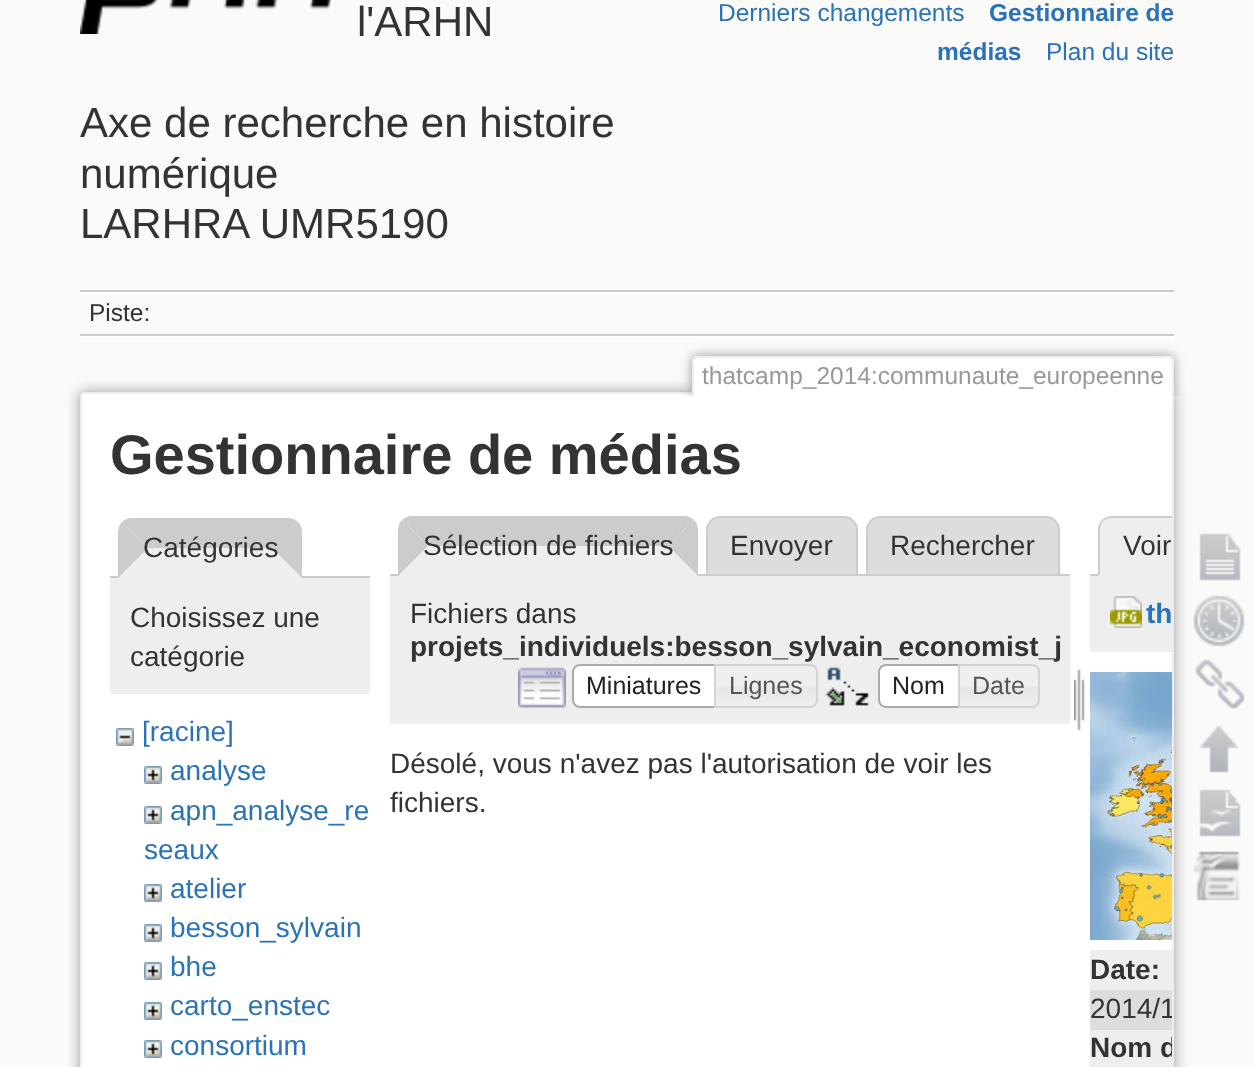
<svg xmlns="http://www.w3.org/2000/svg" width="1254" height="1067">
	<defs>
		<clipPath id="clip1"><rect x="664" y="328" width="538" height="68" /></clipPath>
		<clipPath id="clip2"><rect x="82" y="394" width="1090" height="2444" rx="2" /></clipPath>
	</defs>
	<rect width="100%" height="100%" fill="#FBFAF9" />
	<image x="80" y="0" width="251" height="34" href="assets/img1.png" />
	<g font-family="Liberation Sans" font-size="42" fill="#333333">
		<text x="357" y="36">l'ARHN</text>
		<text x="80" y="137">Axe de recherche en histoire</text>
		<text x="80" y="188">numérique</text>
		<text x="80" y="238">LARHRA UMR5190</text>
	</g>
	<text x="718" y="21" font-family="Liberation Sans" font-size="24.5" fill="#2B73B7">Derniers changements</text>
	<g font-family="Liberation Sans" font-size="24.5" font-weight="700" fill="#2B73B7">
		<text x="989" y="21">Gestionnaire de</text>
		<text x="937" y="60">médias</text>
	</g>
	<text x="1046" y="60" font-family="Liberation Sans" font-size="24.5" fill="#2B73B7">Plan du site</text>
	<rect x="80" y="290" width="1094" height="2" fill="#CCCCCC" />
	<rect x="80" y="336" width="1094" height="2" fill="#FFFFFF" />
	<rect x="80" y="292" width="1094" height="2" fill="#FFFFFF" />
	<rect x="80" y="334" width="1094" height="2" fill="#CCCCCC" />
	<text x="89" y="321" font-family="Liberation Sans" font-size="24.5" fill="#333333">Piste:</text>
	<rect x="80" y="392" width="1094" height="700" rx="4" fill="#999999" filter="blur(7px)" />
	<rect x="81" y="393" width="1092" height="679" rx="3" fill="#FFFFFF" stroke="#EEEEEE" stroke-width="2" />
	<g clip-path="url(#clip1)">
		<rect x="692" y="356" width="482" height="40" rx="4" fill="#999999" filter="blur(6px)" />
	</g>
	<path d="M696 358H1170C1171 358 1172 359 1172 360V396H694V360C694 359 695 358 696 358Z" fill="#FFFFFF" />
	<rect x="694" y="356" width="478" height="2" fill="#EEEEEE" />
	<rect x="1172" y="358" width="2" height="38" fill="#EEEEEE" />
	<rect x="692" y="358" width="2" height="38" fill="#EEEEEE" />
	<text x="702" y="384" font-family="Liberation Sans" font-size="24.5" fill="#999999">thatcamp_2014:communaute_europeenne</text>
	<text x="110" y="474" font-family="Liberation Sans" font-size="56" font-weight="700" fill="#333333">Gestionnaire de médias</text>
	<path d="M132 518H288C292 518 296 520 298 522L272 548H148L122 522C124 520 128 518 132 518Z" fill="#CCCCCC" />
	<rect x="110" y="576" width="260" height="2" fill="#CCCCCC" />
	<path d="M298 522L272 548L302 578V532C302 528 300 524 298 522Z" fill="#CCCCCC" />
	<path d="M302 578L272 548H148L118 578Z" fill="#EEEEEE" />
	<path d="M118 578V532C118 528 120 524 122 522L148 548Z" fill="#CCCCCC" />
	<text x="143" y="557" font-family="Liberation Sans" font-size="28" fill="#333333">Catégories</text>
	<rect x="110" y="578" width="260" height="116" fill="#EEEEEE" />
	<g font-family="Liberation Sans" font-size="28" fill="#333333">
		<text x="130" y="627">Choisissez une</text>
		<text x="130" y="666">catégorie</text>
	</g>
	<image x="116" y="728" width="18" height="18" href="assets/img2.png" />
	<text x="142" y="741" font-family="Liberation Sans" font-size="28" fill="#2B73B7">[racine]</text>
	<image x="144" y="766" width="18" height="18" href="assets/img3.png" />
	<text x="170" y="780" font-family="Liberation Sans" font-size="28" fill="#2B73B7">analyse</text>
	<image x="144" y="806" width="18" height="18" href="assets/img3.png" />
	<g font-family="Liberation Sans" font-size="28" fill="#2B73B7">
		<text x="170" y="820">apn_analyse_re</text>
		<text x="144" y="859">seaux</text>
	</g>
	<image x="144" y="884" width="18" height="18" href="assets/img3.png" />
	<text x="170" y="898" font-family="Liberation Sans" font-size="28" fill="#2B73B7">atelier</text>
	<image x="144" y="924" width="18" height="18" href="assets/img3.png" />
	<text x="170" y="937" font-family="Liberation Sans" font-size="28" fill="#2B73B7">besson_sylvain</text>
	<image x="144" y="962" width="18" height="18" href="assets/img3.png" />
	<text x="170" y="976" font-family="Liberation Sans" font-size="28" fill="#2B73B7">bhe</text>
	<image x="144" y="1002" width="18" height="18" href="assets/img3.png" />
	<text x="170" y="1015" font-family="Liberation Sans" font-size="28" fill="#2B73B7">carto_enstec</text>
	<image x="144" y="1040" width="18" height="18" href="assets/img3.png" />
	<text x="170" y="1055" font-family="Liberation Sans" font-size="28" fill="#2B73B7">consortium</text>
	<path d="M412 516H684C688 516 692 518 694 520L668 546H428L402 520C404 518 408 516 412 516Z" fill="#CCCCCC" />
	<path d="M720 517H844C851 517 857 523 857 530V575H707V530C707 523 713 517 720 517Z" fill="#DDDDDD" stroke="#CCCCCC" stroke-width="2" />
	<path d="M880 517H1046C1053 517 1059 523 1059 530V575H867V530C867 523 873 517 880 517Z" fill="#DDDDDD" stroke="#CCCCCC" stroke-width="2" />
	<rect x="390" y="574" width="680" height="2" fill="#CCCCCC" />
	<path d="M694 520L668 546L698 576V530C698 526 696 522 694 520Z" fill="#CCCCCC" />
	<path d="M698 576L668 546H428L398 576Z" fill="#EEEEEE" />
	<path d="M398 576V530C398 526 400 522 402 520L428 546Z" fill="#CCCCCC" />
	<g font-family="Liberation Sans" font-size="28" fill="#333333">
		<text x="423" y="555">Sélection de fichiers</text>
		<text x="730" y="555">Envoyer</text>
		<text x="890" y="555">Rechercher</text>
	</g>
	<rect x="390" y="576" width="680" height="148" fill="#EEEEEE" />
	<text x="410" y="623" font-family="Liberation Sans" font-size="28" fill="#333333">Fichiers dans</text>
	<text x="410" y="656" font-family="Liberation Sans" font-size="28" font-weight="700" fill="#333333">projets_individuels:besson_sylvain_economist_j</text>
	<image x="518" y="667" width="48" height="41" href="assets/img4.png" />
	<path d="M580 664H716V708H580C575.5 708 572 704.5 572 700V672C572 667.5 575.5 664 580 664Z" fill="#FFFFFF" />
	<image x="572" y="664" width="6" height="44" href="assets/img5.png" />
	<path d="M580 665H715V707H580C576 707 573 704 573 700V672C573 668 576 665 580 665Z" fill="none" stroke="#AAAAAA" stroke-width="2" />
	<text x="586" y="694" font-family="Liberation Sans" font-size="25" fill="#212121">Miniatures</text>
	<image x="716" y="664" width="102" height="44" href="assets/img6.png" />
	<path d="M715 665H810C814 665 817 668 817 672V700C817 704 814 707 810 707H715Z" fill="none" stroke="#D3D3D3" stroke-width="2" />
	<text x="729" y="694" font-family="Liberation Sans" font-size="25" fill="#555555">Lignes</text>
	<image x="825" y="667" width="44" height="39" href="assets/img7.png" />
	<path d="M886 664H960V708H886C881.5 708 878 704.5 878 700V672C878 667.5 881.5 664 886 664Z" fill="#FFFFFF" />
	<image x="878" y="664" width="6" height="44" href="assets/img5.png" />
	<path d="M886 665H959V707H886C882 707 879 704 879 700V672C879 668 882 665 886 665Z" fill="none" stroke="#AAAAAA" stroke-width="2" />
	<text x="892" y="694" font-family="Liberation Sans" font-size="25" fill="#212121">Nom</text>
	<image x="960" y="664" width="80" height="44" href="assets/img8.png" />
	<path d="M959 665H1032C1036 665 1039 668 1039 672V700C1039 704 1036 707 1032 707H959Z" fill="none" stroke="#D3D3D3" stroke-width="2" />
	<text x="972" y="694" font-family="Liberation Sans" font-size="25" fill="#555555">Date</text>
	<image x="1074" y="668" width="11" height="63" href="assets/img9.png" />
	<g font-family="Liberation Sans" font-size="28" fill="#333333">
		<text x="390" y="773">Désolé, vous n'avez pas l'autorisation de voir les</text>
		<text x="390" y="812">fichiers.</text>
	</g>
	<path d="M1112 516H1172V576H1098V530C1098 522.5 1104.5 516 1112 516Z" fill="#EEEEEE" />
	<path d="M1112 516H1172V518H1112C1108 518 1106 519 1103 521L1102 520C1104 518 1108 516 1112 516Z" fill="#CCCCCC" />
	<path d="M1098 576L1100 574V530C1100 526 1101 524 1103 521L1102 520C1100 522 1098 526 1098 530Z" fill="#CCCCCC" />
	<text x="1123" y="555" font-family="Liberation Sans" font-size="28" fill="#333333">Voir</text>
	<rect x="1090" y="574" width="8" height="2" fill="#CCCCCC" />
	<rect x="1090" y="576" width="82" height="76" fill="#EEEEEE" />
	<image x="1110" y="596" width="32" height="32" href="assets/img10.png" />
	<text x="1146" y="623" font-family="Liberation Sans" font-size="28" font-weight="700" fill="#2B73B7">th</text>
	<image x="1090" y="672" width="82" height="268" href="assets/img11.png" />
	<rect x="1090" y="950" width="82" height="40" fill="#EEEEEE" />
	<text x="1090" y="979" font-family="Liberation Sans" font-size="28" font-weight="700" fill="#333333">Date:</text>
	<rect x="1090" y="990" width="82" height="40" fill="#DDDDDD" />
	<g clip-path="url(#clip2)">
		<text x="1090" y="1018" font-family="Liberation Sans" font-size="28" fill="#333333">2014/1</text>
	</g>
	<rect x="1090" y="1030" width="82" height="37" fill="#EEEEEE" />
	<g clip-path="url(#clip2)">
		<text x="1090" y="1057" font-family="Liberation Sans" font-size="28" font-weight="700" fill="#333333">Nom d</text>
	</g>
	<image x="1199" y="533" width="42" height="48" href="assets/img12.png" />
	<image x="1193" y="595" width="52" height="52" href="assets/img13.png" />
	<image x="1195" y="659" width="50" height="50" href="assets/img14.png" />
	<image x="1199" y="725" width="40" height="48" href="assets/img15.png" />
	<image x="1199" y="789" width="42" height="48" href="assets/img16.png" />
	<image x="1193" y="851" width="48" height="50" href="assets/img17.png" />
</svg>
